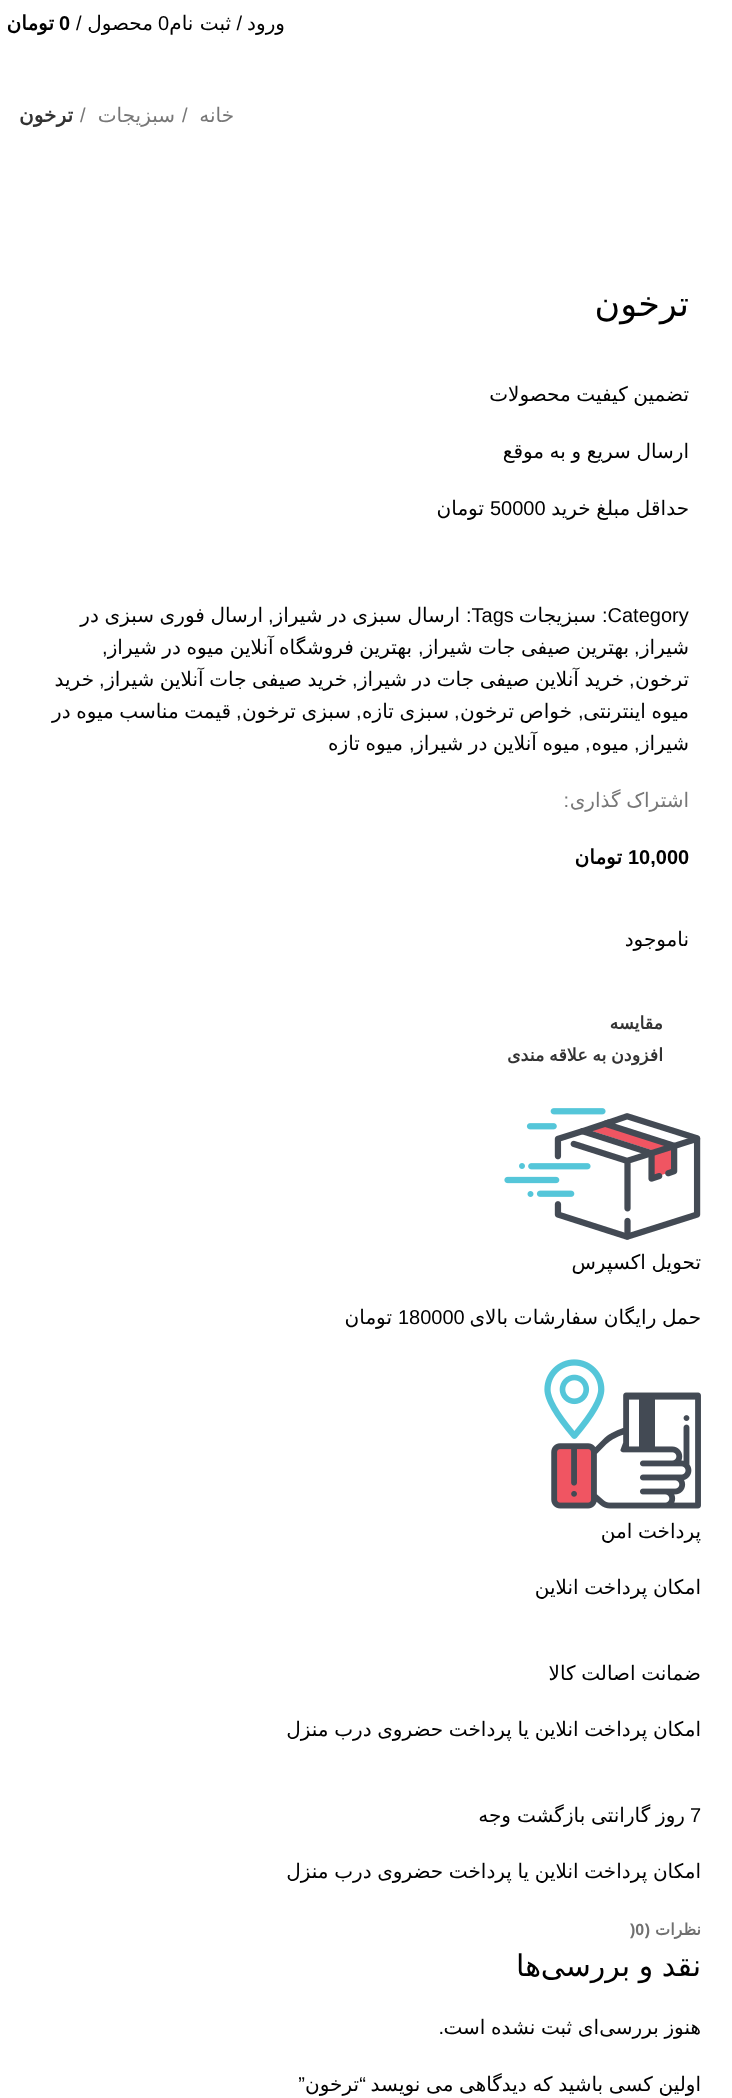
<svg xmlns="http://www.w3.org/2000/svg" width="732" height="2098">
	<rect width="100%" height="100%" fill="#FFFFFF" />
	<text x="285" y="30" font-family="DejaVu Sans" font-size="20" direction="rtl" fill="#000000">ورود</text>
	<text x="242" y="30" font-family="Liberation Sans" font-size="20" direction="rtl" fill="#000000">/</text>
	<text x="231" y="30" font-family="DejaVu Sans" font-size="20" direction="rtl" fill="#000000">ثبت نام</text>
	<text x="158" y="30" font-family="Liberation Sans" font-size="20" fill="#000000">0</text>
	<text x="153" y="30" font-family="DejaVu Sans" font-size="20" direction="rtl" fill="#000000">محصول</text>
	<text x="76" y="30" font-family="Liberation Sans" font-size="20" fill="#000000">/</text>
	<text x="59" y="30" font-family="Liberation Sans" font-size="20" font-weight="700" fill="#000000">0</text>
	<text x="54" y="30" font-family="DejaVu Sans" font-size="20" font-weight="700" direction="rtl" fill="#000000">تومان</text>
	<text x="234" y="122" font-family="DejaVu Sans" font-size="20" direction="rtl" fill="#777777">خانه</text>
	<text x="182" y="122" font-family="Liberation Sans" font-size="20" fill="#777777">/</text>
	<text x="175" y="122" font-family="DejaVu Sans" font-size="20" direction="rtl" fill="#777777">سبزیجات</text>
	<text x="80" y="122" font-family="Liberation Sans" font-size="20" fill="#777777">/</text>
	<text x="73" y="122" font-family="DejaVu Sans" font-size="20" font-weight="700" direction="rtl" fill="#333333">ترخون</text>
	<text x="689" y="316" font-family="DejaVu Sans" font-size="35" direction="rtl" fill="#000000">ترخون</text>
	<g font-family="DejaVu Sans" font-size="20" direction="rtl" fill="#000000">
		<text x="689" y="401" word-spacing="-0.75">تضمین کیفیت محصولات</text>
		<text x="689" y="458" word-spacing="-0.75">ارسال سریع و به موقع</text>
		<text x="689" y="515" word-spacing="-0.75">حداقل مبلغ خرید</text>
	</g>
	<text x="490" y="515" font-family="Liberation Sans" font-size="20" fill="#000000">50000</text>
	<text x="484" y="515" font-family="DejaVu Sans" font-size="20" direction="rtl" fill="#000000">تومان</text>
	<text x="602" y="622" font-family="Liberation Sans" font-size="20" fill="#000000">:Category</text>
	<text x="596" y="622" font-family="DejaVu Sans" font-size="20" direction="rtl" fill="#000000">سبزیجات</text>
	<text x="466" y="622" font-family="Liberation Sans" font-size="20" fill="#000000">:Tags</text>
	<text x="460" y="622" word-spacing="-0.75" font-family="DejaVu Sans" font-size="20" direction="rtl" fill="#000000">ارسال سبزی در شیراز</text>
	<text x="268" y="622" font-family="Liberation Sans" font-size="20" fill="#000000">,</text>
	<g font-family="DejaVu Sans" font-size="20" direction="rtl" fill="#000000">
		<text x="263" y="622" word-spacing="-0.75">ارسال فوری سبزی در</text>
		<text x="689" y="654">شیراز</text>
	</g>
	<text x="634" y="654" font-family="Liberation Sans" font-size="20" fill="#000000">,</text>
	<text x="629" y="654" word-spacing="-0.75" font-family="DejaVu Sans" font-size="20" direction="rtl" fill="#000000">بهترین صیفی جات شیراز</text>
	<text x="418" y="654" font-family="Liberation Sans" font-size="20" fill="#000000">,</text>
	<text x="412" y="654" word-spacing="-0.75" font-family="DejaVu Sans" font-size="20" direction="rtl" fill="#000000">بهترین فروشگاه آنلاین میوه در شیراز</text>
	<text x="102" y="654" font-family="Liberation Sans" font-size="20" fill="#000000">,</text>
	<text x="689" y="686" font-family="DejaVu Sans" font-size="20" direction="rtl" fill="#000000">ترخون</text>
	<text x="629" y="686" font-family="Liberation Sans" font-size="20" fill="#000000">,</text>
	<text x="624" y="686" word-spacing="-0.75" font-family="DejaVu Sans" font-size="20" direction="rtl" fill="#000000">خرید آنلاین صیفی جات در شیراز</text>
	<text x="352" y="686" font-family="Liberation Sans" font-size="20" fill="#000000">,</text>
	<text x="347" y="686" word-spacing="-0.75" font-family="DejaVu Sans" font-size="20" direction="rtl" fill="#000000">خرید صیفی جات آنلاین شیراز</text>
	<text x="99" y="686" font-family="Liberation Sans" font-size="20" fill="#000000">,</text>
	<g font-family="DejaVu Sans" font-size="20" direction="rtl" fill="#000000">
		<text x="94" y="686">خرید</text>
		<text x="689" y="718" word-spacing="-0.75">میوه اینترنتی</text>
	</g>
	<text x="578" y="718" font-family="Liberation Sans" font-size="20" fill="#000000">,</text>
	<text x="572" y="718" word-spacing="-0.75" font-family="DejaVu Sans" font-size="20" direction="rtl" fill="#000000">خواص ترخون</text>
	<text x="454" y="718" font-family="Liberation Sans" font-size="20" fill="#000000">,</text>
	<text x="449" y="718" word-spacing="-0.75" font-family="DejaVu Sans" font-size="20" direction="rtl" fill="#000000">سبزی تازه</text>
	<text x="356" y="718" font-family="Liberation Sans" font-size="20" fill="#000000">,</text>
	<text x="351" y="718" word-spacing="-0.75" font-family="DejaVu Sans" font-size="20" direction="rtl" fill="#000000">سبزی ترخون</text>
	<text x="236" y="718" font-family="Liberation Sans" font-size="20" fill="#000000">,</text>
	<g font-family="DejaVu Sans" font-size="20" direction="rtl" fill="#000000">
		<text x="231" y="718" word-spacing="-0.75">قیمت مناسب میوه در</text>
		<text x="689" y="750">شیراز</text>
	</g>
	<text x="634" y="750" font-family="Liberation Sans" font-size="20" fill="#000000">,</text>
	<text x="629" y="750" font-family="DejaVu Sans" font-size="20" direction="rtl" fill="#000000">میوه</text>
	<text x="585" y="750" font-family="Liberation Sans" font-size="20" fill="#000000">,</text>
	<text x="580" y="750" word-spacing="-0.75" font-family="DejaVu Sans" font-size="20" direction="rtl" fill="#000000">میوه آنلاین در شیراز</text>
	<text x="409" y="750" font-family="Liberation Sans" font-size="20" fill="#000000">,</text>
	<text x="403" y="750" word-spacing="-0.75" font-family="DejaVu Sans" font-size="20" direction="rtl" fill="#000000">میوه تازه</text>
	<text x="689" y="807" word-spacing="-0.75" font-family="DejaVu Sans" font-size="20" direction="rtl" fill="#777777">اشتراک گذاری</text>
	<text x="569" y="807" font-family="Liberation Sans" font-size="20" direction="rtl" fill="#777777">:</text>
	<text x="628" y="864" font-family="Liberation Sans" font-size="20" font-weight="700" fill="#000000">10,000</text>
	<text x="622" y="864" font-family="DejaVu Sans" font-size="20" font-weight="700" direction="rtl" fill="#000000">تومان</text>
	<text x="689" y="946" font-family="DejaVu Sans" font-size="20" direction="rtl" fill="#000000">ناموجود</text>
	<g font-family="DejaVu Sans" font-size="17.5" font-weight="700" direction="rtl" fill="#333333">
		<text x="663" y="1029">مقایسه</text>
		<text x="663" y="1061" word-spacing="-1">افزودن به علاقه مندی</text>
	</g>
	<image x="504" y="1108" width="197" height="132" href="assets/img1.png" />
	<g font-family="DejaVu Sans" font-size="20" direction="rtl" fill="#000000">
		<text x="701" y="1269" word-spacing="-0.75">تحویل اکسپرس</text>
		<text x="701" y="1324" word-spacing="-0.75">حمل رایگان سفارشات بالای</text>
	</g>
	<text x="398" y="1324" font-family="Liberation Sans" font-size="20" fill="#000000">180000</text>
	<text x="392" y="1324" font-family="DejaVu Sans" font-size="20" direction="rtl" fill="#000000">تومان</text>
	<image x="544" y="1359" width="157" height="150" href="assets/img2.png" />
	<g font-family="DejaVu Sans" font-size="20" direction="rtl" fill="#000000">
		<text x="701" y="1538" word-spacing="-0.75">پرداخت امن</text>
		<text x="701" y="1594" word-spacing="-0.75">امکان پرداخت انلاین</text>
		<text x="701" y="1680" word-spacing="-0.75">ضمانت اصالت کالا</text>
		<text x="701" y="1736" word-spacing="-0.75">امکان پرداخت انلاین یا پرداخت حضروی درب منزل</text>
	</g>
	<text x="690" y="1822" font-family="Liberation Sans" font-size="20" fill="#000000">7</text>
	<g font-family="DejaVu Sans" font-size="20" direction="rtl" fill="#000000">
		<text x="685" y="1822" word-spacing="-0.5">روز گارانتی بازگشت وجه</text>
		<text x="701" y="1878" word-spacing="-0.75">امکان پرداخت انلاین یا پرداخت حضروی درب منزل</text>
	</g>
	<text x="701" y="1935" font-family="DejaVu Sans" font-size="16" font-weight="700" direction="rtl" fill="#707070">نظرات</text>
	<text x="650" y="1935" font-family="Liberation Sans" font-size="16" font-weight="700" direction="rtl" fill="#707070">(</text>
	<text x="630" y="1935" font-family="Liberation Sans" font-size="16" font-weight="700" fill="#707070">)0</text>
	<g font-family="DejaVu Sans" font-size="30" direction="rtl" fill="#000000">
		<text x="701" y="1976" word-spacing="-1">نقد و بررسی</text>
		<text x="541" y="1976">ها</text>
	</g>
	<g font-family="DejaVu Sans" font-size="20" direction="rtl" fill="#000000">
		<text x="701" y="2034" word-spacing="-0.75">هنوز بررسی</text>
		<text x="599" y="2034" word-spacing="-0.75">ای ثبت نشده است</text>
	</g>
	<text x="444" y="2034" font-family="Liberation Sans" font-size="20" direction="rtl" fill="#000000">.</text>
	<text x="701" y="2091" word-spacing="-0.75" font-family="DejaVu Sans" font-size="20" direction="rtl" fill="#000000">اولین کسی باشید که دیدگاهی می نویسد</text>
	<g font-family="Liberation Sans" font-size="20" direction="rtl" fill="#000000">
		<text x="366" y="2091">“</text>
		<text x="305" y="2091">”</text>
	</g>
	<text x="359" y="2091" font-family="DejaVu Sans" font-size="20" direction="rtl" fill="#000000">ترخون</text>
</svg>
